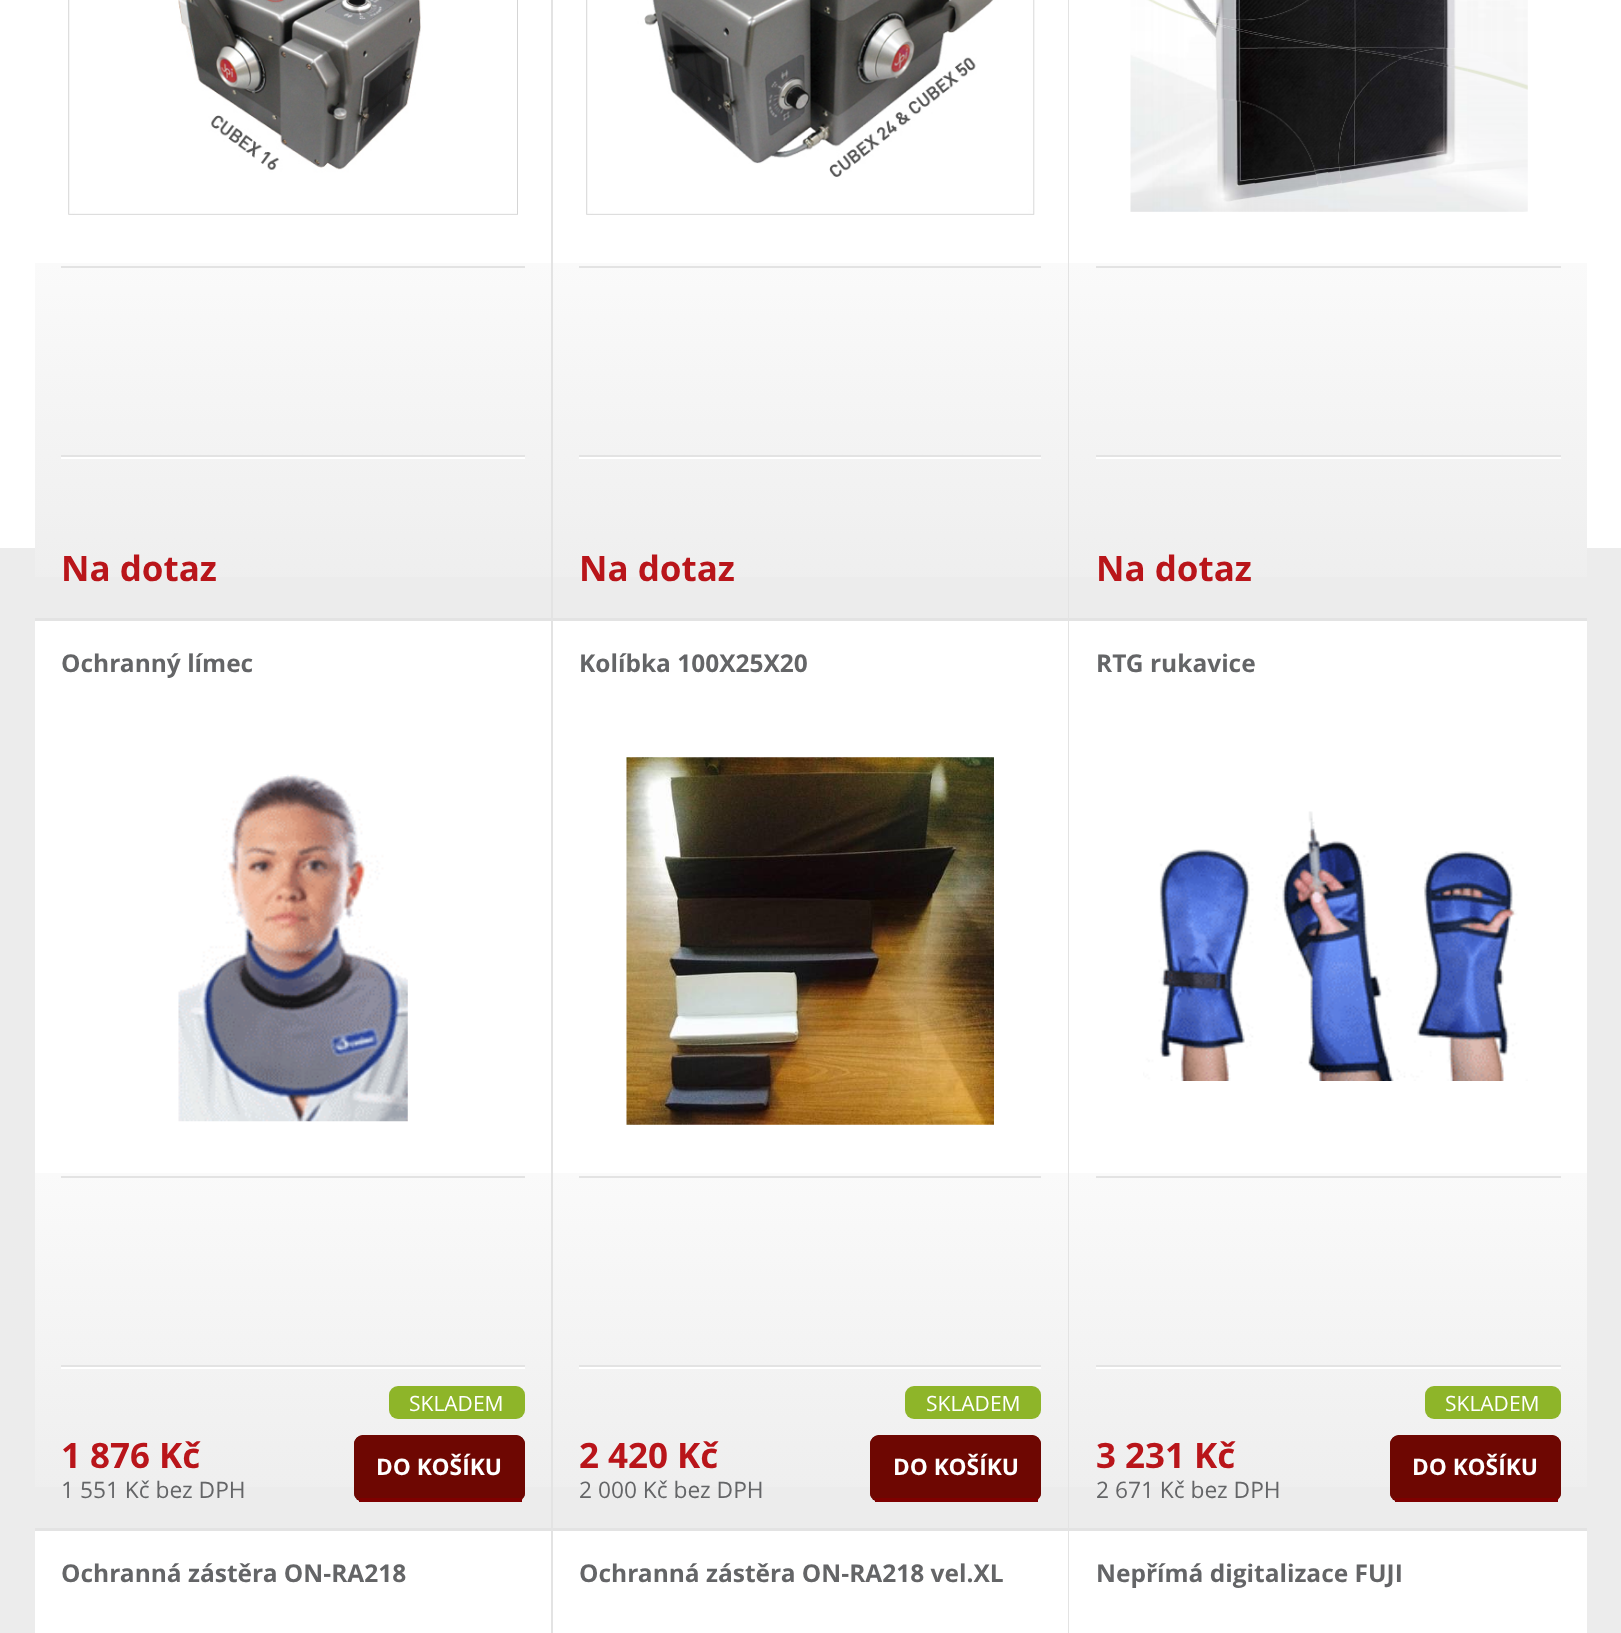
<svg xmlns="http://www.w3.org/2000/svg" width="1621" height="1633">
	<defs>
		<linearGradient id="g1" gradientUnits="userSpaceOnUse" x1="293" y1="263" x2="293" y2="618"><stop offset="0" stop-color="#FAFAFA" /><stop offset="1" stop-color="#EDEDED" /></linearGradient>
		<linearGradient id="g2" gradientUnits="userSpaceOnUse" x1="810" y1="263" x2="810" y2="618"><stop offset="0" stop-color="#FAFAFA" /><stop offset="1" stop-color="#EDEDED" /></linearGradient>
		<linearGradient id="g3" gradientUnits="userSpaceOnUse" x1="1328" y1="263" x2="1328" y2="618"><stop offset="0" stop-color="#FAFAFA" /><stop offset="1" stop-color="#EDEDED" /></linearGradient>
		<linearGradient id="g4" gradientUnits="userSpaceOnUse" x1="293" y1="1173" x2="293" y2="1528"><stop offset="0" stop-color="#FAFAFA" /><stop offset="1" stop-color="#EDEDED" /></linearGradient>
		<clipPath id="clip1"><rect x="354" y="1435" width="171" height="67" rx="9" /></clipPath>
		<linearGradient id="g5" gradientUnits="userSpaceOnUse" x1="810" y1="1173" x2="810" y2="1528"><stop offset="0" stop-color="#FAFAFA" /><stop offset="1" stop-color="#EDEDED" /></linearGradient>
		<clipPath id="clip2"><rect x="870" y="1435" width="171" height="67" rx="9" /></clipPath>
		<linearGradient id="g6" gradientUnits="userSpaceOnUse" x1="1328" y1="1173" x2="1328" y2="1528"><stop offset="0" stop-color="#FAFAFA" /><stop offset="1" stop-color="#EDEDED" /></linearGradient>
		<clipPath id="clip3"><rect x="1390" y="1435" width="171" height="67" rx="9" /></clipPath>
	</defs>
	<rect width="100%" height="100%" fill="#ECECEC" />
	<rect x="0" y="0" width="1621" height="548" fill="#FFFFFF" />
	<rect x="551" y="0" width="2" height="1633" fill="#E3E3E3" />
	<rect x="35" y="618" width="518" height="3" fill="#E3E3E3" />
	<image x="68" y="0" width="450" height="215" href="assets/img1.png" />
	<rect x="35" y="263" width="516" height="314" fill="url(#g1)" />
	<rect x="61" y="266" width="464" height="2" fill="#E3E3E3" />
	<rect x="61" y="455" width="464" height="2" fill="#E3E3E3" />
	<rect x="61" y="457" width="464" height="2" fill="#FFFFFF" />
	<text x="61" y="581" font-family="Open Sans" font-size="35" font-weight="700" fill="#B9151A">Na dotaz</text>
	<rect x="1068" y="0" width="1" height="1633" fill="#E3E3E3" />
	<rect x="553" y="618" width="1034" height="3" fill="#E3E3E3" />
	<image x="586" y="0" width="449" height="215" href="assets/img2.png" />
	<rect x="553" y="263" width="515" height="314" fill="url(#g2)" />
	<rect x="579" y="266" width="462" height="2" fill="#E3E3E3" />
	<rect x="579" y="455" width="462" height="2" fill="#E3E3E3" />
	<rect x="579" y="457" width="462" height="2" fill="#FFFFFF" />
	<text x="579" y="581" font-family="Open Sans" font-size="35" font-weight="700" fill="#B9151A">Na dotaz</text>
	<image x="1130" y="0" width="398" height="212" href="assets/img3.png" />
	<rect x="1069" y="263" width="518" height="314" fill="url(#g3)" />
	<rect x="1096" y="266" width="465" height="2" fill="#E3E3E3" />
	<rect x="1096" y="455" width="465" height="2" fill="#E3E3E3" />
	<rect x="1096" y="457" width="465" height="2" fill="#FFFFFF" />
	<text x="1096" y="581" font-family="Open Sans" font-size="35" font-weight="700" fill="#B9151A">Na dotaz</text>
	<rect x="35" y="621" width="516" height="552" fill="#FFFFFF" />
	<rect x="35" y="1528" width="1552" height="3" fill="#E3E3E3" />
	<text x="61" y="672" font-family="Open Sans" font-size="24.5" font-weight="700" fill="#646567">Ochranný límec</text>
	<image x="178" y="774" width="230" height="348" href="assets/img4.png" />
	<rect x="35" y="1173" width="516" height="314" fill="url(#g4)" />
	<rect x="61" y="1176" width="464" height="2" fill="#E3E3E3" />
	<rect x="61" y="1365" width="464" height="2" fill="#E3E3E3" />
	<rect x="61" y="1367" width="464" height="2" fill="#FFFFFF" />
	<rect x="389" y="1386" width="136" height="33" rx="9" fill="#8EB529" />
	<text x="409" y="1411" font-family="Open Sans" font-size="21" fill="#FFFFFF">SKLADEM</text>
	<text x="61" y="1468" font-family="Open Sans" font-size="35" font-weight="700" fill="#B9151A">1 876 Kč</text>
	<text x="61" y="1498" font-family="Open Sans" font-size="22.75" fill="#646567">1 551 Kč bez DPH</text>
	<rect x="354" y="1435" width="171" height="67" rx="9" fill="#6E0702" />
	<g clip-path="url(#clip1)">
		<path d="M363 1435H516C521 1435 525 1439 525 1444V1498H354V1444C354 1439 358 1435 363 1435Z" fill="#6E0702" />
	</g>
	<rect x="359" y="1498" width="163" height="4" fill="#7F0000" />
	<text x="376" y="1475" font-family="Open Sans" font-size="22.75" font-weight="700" fill="#FFFFFF">DO KOŠÍKU</text>
	<rect x="553" y="621" width="515" height="552" fill="#FFFFFF" />
	<text x="579" y="672" font-family="Open Sans" font-size="24.5" font-weight="700" fill="#646567">Kolíbka 100X25X20</text>
	<image x="626" y="757" width="368" height="368" href="assets/img5.png" />
	<rect x="553" y="1173" width="515" height="314" fill="url(#g5)" />
	<rect x="579" y="1176" width="462" height="2" fill="#E3E3E3" />
	<rect x="579" y="1365" width="462" height="2" fill="#E3E3E3" />
	<rect x="579" y="1367" width="462" height="2" fill="#FFFFFF" />
	<rect x="905" y="1386" width="136" height="33" rx="9" fill="#8EB529" />
	<text x="926" y="1411" font-family="Open Sans" font-size="21" fill="#FFFFFF">SKLADEM</text>
	<text x="579" y="1468" font-family="Open Sans" font-size="35" font-weight="700" fill="#B9151A">2 420 Kč</text>
	<text x="579" y="1498" font-family="Open Sans" font-size="22.75" fill="#646567">2 000 Kč bez DPH</text>
	<rect x="870" y="1435" width="171" height="67" rx="9" fill="#6E0702" />
	<g clip-path="url(#clip2)">
		<path d="M879 1435H1032C1037 1435 1041 1439 1041 1444V1498H870V1444C870 1439 874 1435 879 1435Z" fill="#6E0702" />
	</g>
	<rect x="875" y="1498" width="163" height="4" fill="#7F0000" />
	<text x="893" y="1475" font-family="Open Sans" font-size="22.75" font-weight="700" fill="#FFFFFF">DO KOŠÍKU</text>
	<rect x="1069" y="621" width="518" height="552" fill="#FFFFFF" />
	<text x="1096" y="672" font-family="Open Sans" font-size="24.5" font-weight="700" fill="#646567">RTG rukavice</text>
	<image x="1143" y="811" width="385" height="270" href="assets/img6.png" />
	<rect x="1069" y="1173" width="518" height="314" fill="url(#g6)" />
	<rect x="1096" y="1176" width="465" height="2" fill="#E3E3E3" />
	<rect x="1096" y="1365" width="465" height="2" fill="#E3E3E3" />
	<rect x="1096" y="1367" width="465" height="2" fill="#FFFFFF" />
	<rect x="1425" y="1386" width="136" height="33" rx="9" fill="#8EB529" />
	<text x="1445" y="1411" font-family="Open Sans" font-size="21" fill="#FFFFFF">SKLADEM</text>
	<text x="1096" y="1468" font-family="Open Sans" font-size="35" font-weight="700" fill="#B9151A">3 231 Kč</text>
	<text x="1096" y="1498" font-family="Open Sans" font-size="22.75" fill="#646567">2 671 Kč bez DPH</text>
	<rect x="1390" y="1435" width="171" height="67" rx="9" fill="#6E0702" />
	<g clip-path="url(#clip3)">
		<path d="M1399 1435H1552C1557 1435 1561 1439 1561 1444V1498H1390V1444C1390 1439 1394 1435 1399 1435Z" fill="#6E0702" />
	</g>
	<rect x="1395" y="1498" width="163" height="4" fill="#7F0000" />
	<text x="1412" y="1475" font-family="Open Sans" font-size="22.75" font-weight="700" fill="#FFFFFF">DO KOŠÍKU</text>
	<rect x="35" y="1531" width="516" height="102" fill="#FFFFFF" />
	<text x="61" y="1582" font-family="Open Sans" font-size="24.5" font-weight="700" fill="#646567">Ochranná zástěra ON-RA218</text>
	<rect x="553" y="1531" width="515" height="102" fill="#FFFFFF" />
	<text x="579" y="1582" font-family="Open Sans" font-size="24.5" font-weight="700" fill="#646567">Ochranná zástěra ON-RA218 vel.XL</text>
	<rect x="1069" y="1531" width="518" height="102" fill="#FFFFFF" />
	<text x="1096" y="1582" font-family="Open Sans" font-size="24.5" font-weight="700" fill="#646567">Nepřímá digitalizace FUJI</text>
</svg>
